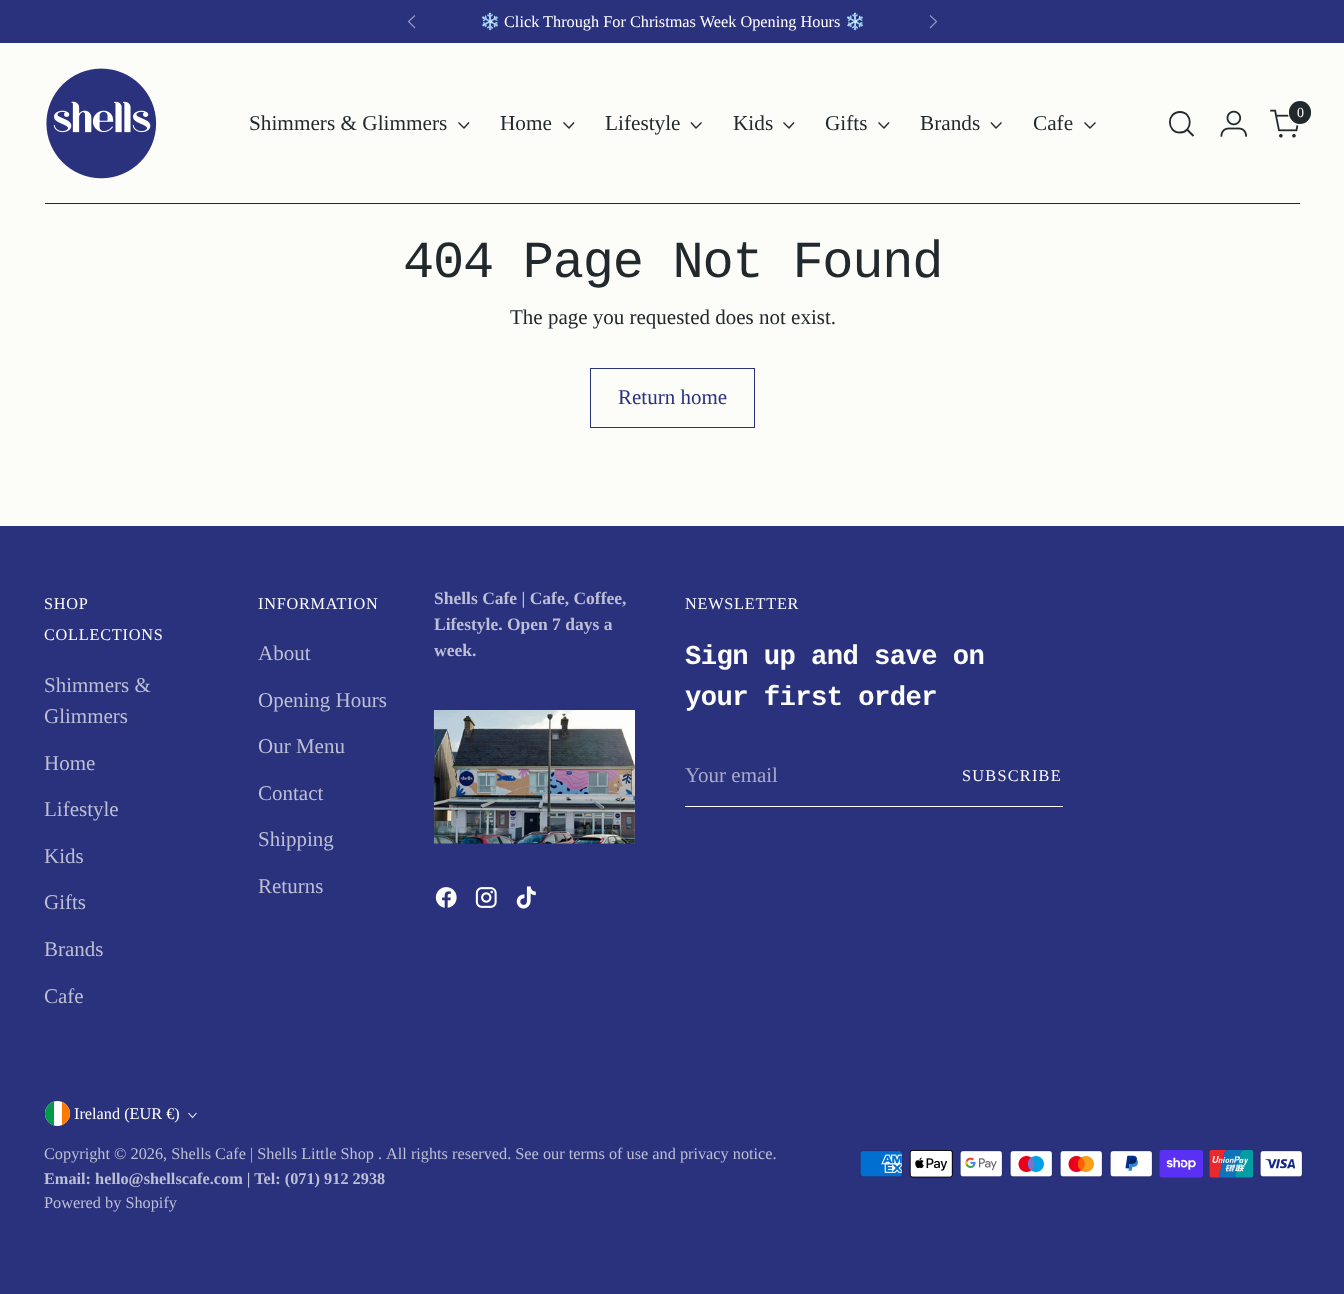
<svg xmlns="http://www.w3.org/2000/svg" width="1344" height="1294">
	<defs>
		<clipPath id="clip1"><rect x="45" y="1101" width="25" height="25" rx="12.5" /></clipPath>
	</defs>
	<rect width="100%" height="100%" fill="#FCFCF9" />
	<rect x="0" y="0" width="1344" height="43" fill="#2A317D" />
	<text x="480" y="27" font-family="Noto Color Emoji" font-size="16.3" fill="#FFFFFF">❄️</text>
	<text x="504" y="27" font-family="Liberation Serif" font-size="16.3" fill="#FFFFFF">Click Through For Christmas Week Opening Hours</text>
	<text x="845" y="27" font-family="Noto Color Emoji" font-size="16.3" fill="#FFFFFF">❄️</text>
	<path d="M415 15.5L408.5 21.5L415 28" fill="none" stroke="#9598BE" stroke-width="1.2" />
	<path d="M930 28L936.5 21.5L930 15.5" fill="none" stroke="#9598BE" stroke-width="1.2" />
	<rect x="45" y="203" width="1255" height="1" fill="#22292D" />
	<image x="46" y="68" width="111" height="111" href="assets/img1.png" />
	<path d="M1180 132.5C1193 132.5 1193 112 1180 112C1166.5 112 1166.5 132.5 1180 132.5Z" fill="none" stroke="#22292D" stroke-width="1.8" stroke-linecap="round" />
	<path d="M1187 129.5L1193.5 136" fill="none" stroke="#22292D" stroke-width="1.8" />
	<image x="1220" y="110" width="28" height="27" href="assets/img2.png" />
	<image x="1270" y="109" width="29" height="29" href="assets/img3.png" />
	<circle cx="1301" cy="113" r="12" fill="none" stroke="#FCFCF9" stroke-width="2" />
	<rect x="1289" y="101" width="22" height="23" rx="11" fill="#22292D" />
	<text x="1297" y="117" font-family="Liberation Serif" font-size="14" fill="#FCFCF9">0</text>
	<text x="249" y="130" font-family="Liberation Serif" font-size="21.25" fill="#22292D">Shimmers &amp; Glimmers</text>
	<path d="M458.5 122.5L464 128L469 122.5" fill="none" stroke="#22292D" stroke-width="1.4" />
	<text x="500" y="130" font-family="Liberation Serif" font-size="21.25" fill="#22292D">Home</text>
	<path d="M563.5 122.5L569 128L574 122.5" fill="none" stroke="#22292D" stroke-width="1.4" />
	<text x="605" y="130" font-family="Liberation Serif" font-size="21.25" fill="#22292D">Lifestyle</text>
	<path d="M691 122.5L696 128L701.5 122.5" fill="none" stroke="#22292D" stroke-width="1.4" />
	<text x="733" y="130" font-family="Liberation Serif" font-size="21.25" fill="#22292D">Kids</text>
	<path d="M783.5 122.5L789 128L794 122.5" fill="none" stroke="#22292D" stroke-width="1.4" />
	<text x="825" y="130" font-family="Liberation Serif" font-size="21.25" fill="#22292D">Gifts</text>
	<path d="M878.5 122.5L884 128L889 122.5" fill="none" stroke="#22292D" stroke-width="1.4" />
	<text x="920" y="130" font-family="Liberation Serif" font-size="21.25" fill="#22292D">Brands</text>
	<path d="M991 122.5L996 128L1001.5 122.5" fill="none" stroke="#22292D" stroke-width="1.4" />
	<text x="1033" y="130" font-family="Liberation Serif" font-size="21.25" fill="#22292D">Cafe</text>
	<path d="M1084.5 122.5L1090 128L1095.5 122.5" fill="none" stroke="#22292D" stroke-width="1.4" />
	<text x="403" y="277" font-family="Liberation Mono" font-size="52" letter-spacing="-1.25" fill="#22292D">404 Page Not Found</text>
	<text x="510" y="324" font-family="Liberation Serif" font-size="21" fill="#22292D">The page you requested does not exist.</text>
	<rect x="590.5" y="368.5" width="164" height="59" fill="none" stroke="#2A317D" />
	<text x="618" y="404" font-family="Liberation Serif" font-size="21" fill="#2A317D">Return home</text>
	<rect x="0" y="526" width="1344" height="768" fill="#2A317D" />
	<g font-family="Liberation Serif" font-size="16.3" letter-spacing="0.75" fill="#FCFCF9">
		<text x="44" y="609">SHOP</text>
		<text x="44" y="640">COLLECTIONS</text>
	</g>
	<g font-family="Liberation Serif" font-size="21" fill="#BDBFD4">
		<text x="44" y="692">Shimmers &amp;</text>
		<text x="44" y="723">Glimmers</text>
		<text x="44" y="770">Home</text>
		<text x="44" y="816">Lifestyle</text>
		<text x="44" y="863">Kids</text>
		<text x="44" y="909">Gifts</text>
		<text x="44" y="956">Brands</text>
		<text x="44" y="1003">Cafe</text>
	</g>
	<text x="258" y="609" font-family="Liberation Serif" font-size="16.3" letter-spacing="0.75" fill="#FCFCF9">INFORMATION</text>
	<g font-family="Liberation Serif" font-size="21" fill="#BDBFD4">
		<text x="258" y="660">About</text>
		<text x="258" y="707">Opening Hours</text>
		<text x="258" y="753">Our Menu</text>
		<text x="258" y="800">Contact</text>
		<text x="258" y="846">Shipping</text>
		<text x="258" y="893">Returns</text>
	</g>
	<g font-family="Liberation Serif" font-size="17.5" font-weight="700" fill="#BDBFD4">
		<text x="434" y="604">Shells Cafe | Cafe, Coffee,</text>
		<text x="434" y="630">Lifestyle. Open 7 days a</text>
		<text x="434" y="656">week.</text>
	</g>
	<image x="433" y="710" width="202" height="134" href="assets/img4.png" />
	<image x="435" y="887" width="22" height="21" href="assets/img5.png" />
	<image x="475" y="887" width="22" height="21" href="assets/img6.png" />
	<image x="516" y="886" width="20" height="23" href="assets/img7.png" />
	<text x="685" y="609" font-family="Liberation Serif" font-size="16.3" letter-spacing="0.75" fill="#FCFCF9">NEWSLETTER</text>
	<g font-family="Liberation Mono" font-size="27.25" font-weight="700" letter-spacing="-0.6" fill="#FCFCF9">
		<text x="685" y="664">Sign up and save on</text>
		<text x="685" y="705">your first order</text>
	</g>
	<rect x="685" y="806" width="378" height="1" fill="#FCFCF9" />
	<text x="685" y="782" font-family="Liberation Serif" font-size="21" fill="#A8ABC7">Your email</text>
	<text x="962" y="781" font-family="Liberation Serif" font-size="16.3" letter-spacing="1.25" fill="#FCFCF9">SUBSCRIBE</text>
	<circle cx="57.5" cy="1113.5" r="12.5" fill="#FFFFFF" />
	<g clip-path="url(#clip1)">
		<rect x="45" y="1101" width="9" height="25" fill="#009A49" />
		<rect x="62" y="1101" width="8" height="25" fill="#FF7900" />
	</g>
	<text x="74" y="1119" font-family="Liberation Serif" font-size="16.3" fill="#FCFCF9">Ireland (EUR €)</text>
	<path d="M188.5 1113L192.5 1117.5L196.5 1113" fill="none" stroke="#FCFCF9" stroke-width="1.1" />
	<g font-family="Liberation Serif" font-size="16.3" fill="#BDBFD4">
		<text x="44" y="1159">Copyright © 2026, Shells Cafe | Shells Little Shop .</text>
		<text x="386" y="1159">All rights reserved. See our terms of use and privacy notice.</text>
	</g>
	<text x="44" y="1184" font-family="Liberation Serif" font-size="16.3" font-weight="700" fill="#BDBFD4">Email: hello@shellscafe.com | Tel: (071) 912 2938</text>
	<text x="44" y="1208" font-family="Liberation Serif" font-size="16.3" fill="#BDBFD4">Powered by Shopify</text>
	<image x="859" y="1150" width="44" height="28" href="assets/img8.png" />
	<image x="909" y="1150" width="44" height="28" href="assets/img9.png" />
	<image x="959" y="1150" width="44" height="28" href="assets/img10.png" />
	<image x="1009" y="1150" width="44" height="28" href="assets/img11.png" />
	<image x="1059" y="1150" width="44" height="28" href="assets/img12.png" />
	<image x="1109" y="1150" width="44" height="28" href="assets/img13.png" />
	<image x="1159" y="1150" width="44" height="28" href="assets/img14.png" />
	<image x="1209" y="1150" width="44" height="28" href="assets/img15.png" />
	<image x="1259" y="1150" width="44" height="28" href="assets/img16.png" />
</svg>
